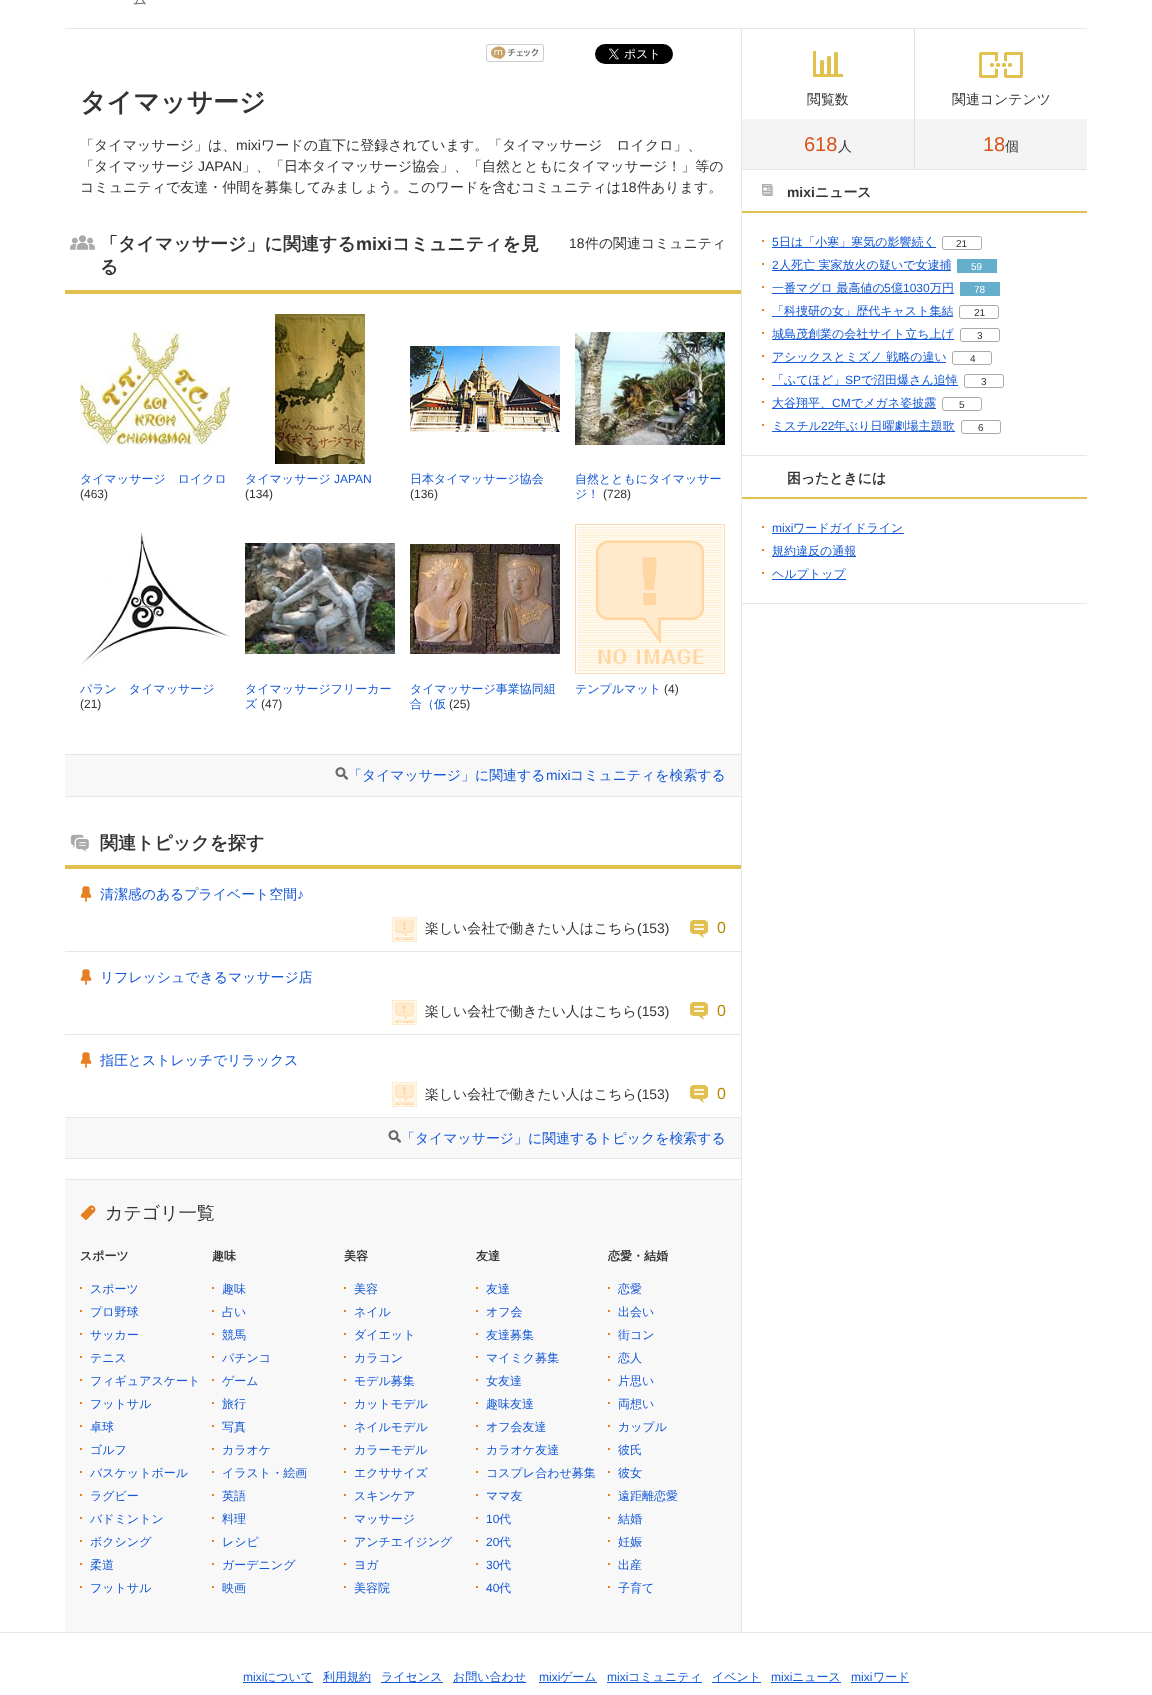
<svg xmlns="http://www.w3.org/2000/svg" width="1152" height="1695">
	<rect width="100%" height="100%" fill="#FFFFFF" />
	<rect x="65" y="28" width="1022" height="1" fill="#E6E6E6" />
	<text x="133" y="4" font-family="WenQuanYi Zen Hei" font-size="13.9" font-weight="500" fill="#666666">ム</text>
	<rect x="741" y="29" width="1" height="1603" fill="#E6E6E6" />
	<image x="486" y="44" width="58" height="18" href="assets/img1.png" />
	<image x="595" y="44" width="78" height="20" href="assets/img2.png" />
	<text x="80" y="111" font-family="WenQuanYi Zen Hei" font-size="26" font-weight="700" fill="#333333">タイマッサージ</text>
	<text x="80" y="150" font-family="WenQuanYi Zen Hei" font-size="14" font-weight="500" fill="#333333">「タイマッサージ」は、</text>
	<text x="236" y="150" font-family="Liberation Sans" font-size="14" fill="#333333">mixi</text>
	<g font-family="WenQuanYi Zen Hei" font-size="14" font-weight="500" fill="#333333">
		<text x="261" y="150">ワードの直下に登録されています。「タイマッサージ　ロイクロ」、</text>
		<text x="80" y="171">「タイマッサージ</text>
	</g>
	<text x="198" y="171" font-family="Liberation Sans" font-size="14" fill="#333333">JAPAN</text>
	<g font-family="WenQuanYi Zen Hei" font-size="14" font-weight="500" fill="#333333">
		<text x="242" y="171">」、「日本タイマッサージ協会」、「自然とともにタイマッサージ！」等の</text>
		<text x="80" y="192">コミュニティで友達・仲間を募集してみましょう。このワードを含むコミュニティは</text>
	</g>
	<text x="621" y="192" font-family="Liberation Sans" font-size="14" fill="#333333">18</text>
	<text x="637" y="192" font-family="WenQuanYi Zen Hei" font-size="14" font-weight="500" fill="#333333">件あります。</text>
	<rect x="65" y="290" width="676" height="4" fill="#E1C04F" />
	<image x="70" y="235" width="25" height="15" href="assets/img3.png" />
	<text x="100" y="250" font-family="WenQuanYi Zen Hei" font-size="18" font-weight="700" fill="#333333">「タイマッサージ」に関連する</text>
	<text x="356" y="250" font-family="Liberation Sans" font-size="18" font-weight="700" fill="#333333">mixi</text>
	<g font-family="WenQuanYi Zen Hei" font-size="18" font-weight="700" fill="#333333">
		<text x="392" y="250">コミュニティを見</text>
		<text x="100" y="273">る</text>
	</g>
	<text x="569" y="248" font-family="Liberation Sans" font-size="13.9" fill="#333333">18</text>
	<text x="585" y="248" font-family="WenQuanYi Zen Hei" font-size="13.9" font-weight="500" fill="#333333">件の関連コミュニティ</text>
	<image x="80" y="332" width="150" height="113" href="assets/img4.png" />
	<text x="80" y="483" font-family="WenQuanYi Zen Hei" font-size="12" font-weight="500" fill="#1558D6">タイマッサージ　ロイクロ</text>
	<text x="80" y="498" font-family="Liberation Sans" font-size="12" fill="#333333">(463)</text>
	<image x="275" y="314" width="90" height="150" href="assets/img5.png" />
	<text x="245" y="483" font-family="WenQuanYi Zen Hei" font-size="12" font-weight="500" fill="#1558D6">タイマッサージ</text>
	<text x="334" y="483" font-family="Liberation Sans" font-size="12" fill="#1558D6">JAPAN</text>
	<text x="245" y="498" font-family="Liberation Sans" font-size="12" fill="#333333">(134)</text>
	<image x="410" y="346" width="150" height="86" href="assets/img6.png" />
	<text x="410" y="483" font-family="WenQuanYi Zen Hei" font-size="12" font-weight="500" fill="#1558D6">日本タイマッサージ協会</text>
	<text x="410" y="498" font-family="Liberation Sans" font-size="12" fill="#333333">(136)</text>
	<image x="575" y="332" width="150" height="113" href="assets/img7.png" />
	<g font-family="WenQuanYi Zen Hei" font-size="12" font-weight="500" fill="#1558D6">
		<text x="575" y="483">自然とともにタイマッサー</text>
		<text x="575" y="498">ジ！</text>
	</g>
	<text x="603" y="498" font-family="Liberation Sans" font-size="12" fill="#333333">(728)</text>
	<image x="81" y="532" width="149" height="133" href="assets/img8.png" />
	<text x="80" y="693" font-family="WenQuanYi Zen Hei" font-size="12" font-weight="500" fill="#1558D6">パラン　タイマッサージ</text>
	<text x="80" y="708" font-family="Liberation Sans" font-size="12" fill="#333333">(21)</text>
	<image x="245" y="543" width="150" height="111" href="assets/img9.png" />
	<g font-family="WenQuanYi Zen Hei" font-size="12" font-weight="500" fill="#1558D6">
		<text x="245" y="693">タイマッサージフリーカー</text>
		<text x="245" y="708">ズ</text>
	</g>
	<text x="261" y="708" font-family="Liberation Sans" font-size="12" fill="#333333">(47)</text>
	<image x="410" y="544" width="150" height="110" href="assets/img10.png" />
	<g font-family="WenQuanYi Zen Hei" font-size="12" font-weight="500" fill="#1558D6">
		<text x="410" y="693">タイマッサージ事業協同組</text>
		<text x="410" y="708">合（仮</text>
	</g>
	<text x="449" y="708" font-family="Liberation Sans" font-size="12" fill="#333333">(25)</text>
	<image x="575" y="524" width="150" height="150" href="assets/img11.png" />
	<text x="575" y="693" font-family="WenQuanYi Zen Hei" font-size="12" font-weight="500" fill="#1558D6">テンプルマット</text>
	<text x="664" y="693" font-family="Liberation Sans" font-size="12" fill="#333333">(4)</text>
	<rect x="65" y="755" width="676" height="41" fill="#F8F8F8" />
	<rect x="65" y="754" width="676" height="1" fill="#E6E6E6" />
	<rect x="65" y="796" width="676" height="1" fill="#E6E6E6" />
	<image x="335" y="767" width="13" height="13" href="assets/img12.png" />
	<text x="348" y="780" font-family="WenQuanYi Zen Hei" font-size="13.9" font-weight="500" fill="#1558D6">「タイマッサージ」に関連する</text>
	<text x="546" y="780" font-family="Liberation Sans" font-size="13.9" fill="#1558D6">mixi</text>
	<text x="570" y="780" font-family="WenQuanYi Zen Hei" font-size="13.9" font-weight="500" fill="#1558D6">コミュニティを検索する</text>
	<rect x="65" y="865" width="676" height="4" fill="#E1C04F" />
	<image x="70" y="834" width="19" height="18" href="assets/img13.png" />
	<text x="100" y="849" font-family="WenQuanYi Zen Hei" font-size="18" font-weight="700" fill="#333333">関連トピックを探す</text>
	<rect x="65" y="951" width="676" height="1" fill="#E6E6E6" />
	<image x="80" y="886" width="12" height="16" href="assets/img14.png" />
	<text x="100" y="899" font-family="WenQuanYi Zen Hei" font-size="13.9" font-weight="500" fill="#1558D6">清潔感のあるプライベート空間</text>
	<text x="297" y="899" font-family="Liberation Sans" font-size="13.9" fill="#1558D6">♪</text>
	<image x="392" y="917" width="25" height="25" href="assets/img15.png" />
	<text x="425" y="933" font-family="WenQuanYi Zen Hei" font-size="13.9" font-weight="500" fill="#333333">楽しい会社で働きたい人はこちら</text>
	<text x="637" y="933" font-family="Liberation Sans" font-size="13.9" fill="#333333">(153)</text>
	<image x="690" y="920" width="18" height="18" href="assets/img16.png" />
	<text x="717" y="933" font-family="Liberation Sans" font-size="16" fill="#B38900">0</text>
	<rect x="65" y="1034" width="676" height="1" fill="#E6E6E6" />
	<image x="80" y="969" width="12" height="16" href="assets/img14.png" />
	<text x="100" y="982" font-family="WenQuanYi Zen Hei" font-size="13.9" font-weight="500" fill="#1558D6">リフレッシュできるマッサージ店</text>
	<image x="392" y="1000" width="25" height="25" href="assets/img15.png" />
	<text x="425" y="1016" font-family="WenQuanYi Zen Hei" font-size="13.9" font-weight="500" fill="#333333">楽しい会社で働きたい人はこちら</text>
	<text x="637" y="1016" font-family="Liberation Sans" font-size="13.9" fill="#333333">(153)</text>
	<image x="690" y="1002" width="18" height="18" href="assets/img16.png" />
	<text x="717" y="1016" font-family="Liberation Sans" font-size="16" fill="#B38900">0</text>
	<image x="80" y="1052" width="12" height="16" href="assets/img14.png" />
	<text x="100" y="1065" font-family="WenQuanYi Zen Hei" font-size="13.9" font-weight="500" fill="#1558D6">指圧とストレッチでリラックス</text>
	<image x="392" y="1082" width="25" height="25" href="assets/img15.png" />
	<text x="425" y="1099" font-family="WenQuanYi Zen Hei" font-size="13.9" font-weight="500" fill="#333333">楽しい会社で働きたい人はこちら</text>
	<text x="637" y="1099" font-family="Liberation Sans" font-size="13.9" fill="#333333">(153)</text>
	<image x="690" y="1085" width="18" height="18" href="assets/img16.png" />
	<text x="717" y="1099" font-family="Liberation Sans" font-size="16" fill="#B38900">0</text>
	<rect x="65" y="1118" width="676" height="40" fill="#F8F8F8" />
	<rect x="65" y="1117" width="676" height="1" fill="#E6E6E6" />
	<rect x="65" y="1158" width="676" height="1" fill="#E6E6E6" />
	<image x="388" y="1130" width="13" height="13" href="assets/img12.png" />
	<text x="401" y="1143" font-family="WenQuanYi Zen Hei" font-size="13.9" font-weight="500" fill="#1558D6">「タイマッサージ」に関連するトピックを検索する</text>
	<rect x="65" y="1180" width="676" height="452" fill="#F8F8F8" />
	<rect x="65" y="1179" width="676" height="1" fill="#E6E6E6" />
	<image x="80" y="1205" width="16" height="15" href="assets/img17.png" />
	<text x="105" y="1219" font-family="WenQuanYi Zen Hei" font-size="18" font-weight="500" fill="#333333">カテゴリ一覧</text>
	<text x="80" y="1260" font-family="WenQuanYi Zen Hei" font-size="12" font-weight="700" fill="#333333">スポーツ</text>
	<rect x="80" y="1287" width="2" height="2" fill="#E67E22" />
	<text x="90" y="1293" font-family="WenQuanYi Zen Hei" font-size="12" font-weight="500" fill="#1558D6">スポーツ</text>
	<rect x="80" y="1310" width="2" height="2" fill="#E67E22" />
	<text x="90" y="1316" font-family="WenQuanYi Zen Hei" font-size="12" font-weight="500" fill="#1558D6">プロ野球</text>
	<rect x="80" y="1333" width="2" height="2" fill="#E67E22" />
	<text x="90" y="1339" font-family="WenQuanYi Zen Hei" font-size="12" font-weight="500" fill="#1558D6">サッカー</text>
	<rect x="80" y="1356" width="2" height="2" fill="#E67E22" />
	<text x="90" y="1362" font-family="WenQuanYi Zen Hei" font-size="12" font-weight="500" fill="#1558D6">テニス</text>
	<rect x="80" y="1379" width="2" height="2" fill="#E67E22" />
	<text x="90" y="1385" font-family="WenQuanYi Zen Hei" font-size="12" font-weight="500" fill="#1558D6">フィギュアスケート</text>
	<rect x="80" y="1402" width="2" height="2" fill="#E67E22" />
	<text x="90" y="1408" font-family="WenQuanYi Zen Hei" font-size="12" font-weight="500" fill="#1558D6">フットサル</text>
	<rect x="80" y="1425" width="2" height="2" fill="#E67E22" />
	<text x="90" y="1431" font-family="WenQuanYi Zen Hei" font-size="12" font-weight="500" fill="#1558D6">卓球</text>
	<rect x="80" y="1448" width="2" height="2" fill="#E67E22" />
	<text x="90" y="1454" font-family="WenQuanYi Zen Hei" font-size="12" font-weight="500" fill="#1558D6">ゴルフ</text>
	<rect x="80" y="1471" width="2" height="2" fill="#E67E22" />
	<text x="90" y="1477" font-family="WenQuanYi Zen Hei" font-size="12" font-weight="500" fill="#1558D6">バスケットボール</text>
	<rect x="80" y="1494" width="2" height="2" fill="#E67E22" />
	<text x="90" y="1500" font-family="WenQuanYi Zen Hei" font-size="12" font-weight="500" fill="#1558D6">ラグビー</text>
	<rect x="80" y="1517" width="2" height="2" fill="#E67E22" />
	<text x="90" y="1523" font-family="WenQuanYi Zen Hei" font-size="12" font-weight="500" fill="#1558D6">バドミントン</text>
	<rect x="80" y="1540" width="2" height="2" fill="#E67E22" />
	<text x="90" y="1546" font-family="WenQuanYi Zen Hei" font-size="12" font-weight="500" fill="#1558D6">ボクシング</text>
	<rect x="80" y="1563" width="2" height="2" fill="#E67E22" />
	<text x="90" y="1569" font-family="WenQuanYi Zen Hei" font-size="12" font-weight="500" fill="#1558D6">柔道</text>
	<rect x="80" y="1586" width="2" height="2" fill="#E67E22" />
	<text x="90" y="1592" font-family="WenQuanYi Zen Hei" font-size="12" font-weight="500" fill="#1558D6">フットサル</text>
	<text x="212" y="1260" font-family="WenQuanYi Zen Hei" font-size="12" font-weight="700" fill="#333333">趣味</text>
	<rect x="212" y="1287" width="2" height="2" fill="#E67E22" />
	<text x="222" y="1293" font-family="WenQuanYi Zen Hei" font-size="12" font-weight="500" fill="#1558D6">趣味</text>
	<rect x="212" y="1310" width="2" height="2" fill="#E67E22" />
	<text x="222" y="1316" font-family="WenQuanYi Zen Hei" font-size="12" font-weight="500" fill="#1558D6">占い</text>
	<rect x="212" y="1333" width="2" height="2" fill="#E67E22" />
	<text x="222" y="1339" font-family="WenQuanYi Zen Hei" font-size="12" font-weight="500" fill="#1558D6">競馬</text>
	<rect x="212" y="1356" width="2" height="2" fill="#E67E22" />
	<text x="222" y="1362" font-family="WenQuanYi Zen Hei" font-size="12" font-weight="500" fill="#1558D6">パチンコ</text>
	<rect x="212" y="1379" width="2" height="2" fill="#E67E22" />
	<text x="222" y="1385" font-family="WenQuanYi Zen Hei" font-size="12" font-weight="500" fill="#1558D6">ゲーム</text>
	<rect x="212" y="1402" width="2" height="2" fill="#E67E22" />
	<text x="222" y="1408" font-family="WenQuanYi Zen Hei" font-size="12" font-weight="500" fill="#1558D6">旅行</text>
	<rect x="212" y="1425" width="2" height="2" fill="#E67E22" />
	<text x="222" y="1431" font-family="WenQuanYi Zen Hei" font-size="12" font-weight="500" fill="#1558D6">写真</text>
	<rect x="212" y="1448" width="2" height="2" fill="#E67E22" />
	<text x="222" y="1454" font-family="WenQuanYi Zen Hei" font-size="12" font-weight="500" fill="#1558D6">カラオケ</text>
	<rect x="212" y="1471" width="2" height="2" fill="#E67E22" />
	<text x="222" y="1477" font-family="WenQuanYi Zen Hei" font-size="12" font-weight="500" fill="#1558D6">イラスト・絵画</text>
	<rect x="212" y="1494" width="2" height="2" fill="#E67E22" />
	<text x="222" y="1500" font-family="WenQuanYi Zen Hei" font-size="12" font-weight="500" fill="#1558D6">英語</text>
	<rect x="212" y="1517" width="2" height="2" fill="#E67E22" />
	<text x="222" y="1523" font-family="WenQuanYi Zen Hei" font-size="12" font-weight="500" fill="#1558D6">料理</text>
	<rect x="212" y="1540" width="2" height="2" fill="#E67E22" />
	<text x="222" y="1546" font-family="WenQuanYi Zen Hei" font-size="12" font-weight="500" fill="#1558D6">レシピ</text>
	<rect x="212" y="1563" width="2" height="2" fill="#E67E22" />
	<text x="222" y="1569" font-family="WenQuanYi Zen Hei" font-size="12" font-weight="500" fill="#1558D6">ガーデニング</text>
	<rect x="212" y="1586" width="2" height="2" fill="#E67E22" />
	<text x="222" y="1592" font-family="WenQuanYi Zen Hei" font-size="12" font-weight="500" fill="#1558D6">映画</text>
	<text x="344" y="1260" font-family="WenQuanYi Zen Hei" font-size="12" font-weight="700" fill="#333333">美容</text>
	<rect x="344" y="1287" width="2" height="2" fill="#E67E22" />
	<text x="354" y="1293" font-family="WenQuanYi Zen Hei" font-size="12" font-weight="500" fill="#1558D6">美容</text>
	<rect x="344" y="1310" width="2" height="2" fill="#E67E22" />
	<text x="354" y="1316" font-family="WenQuanYi Zen Hei" font-size="12" font-weight="500" fill="#1558D6">ネイル</text>
	<rect x="344" y="1333" width="2" height="2" fill="#E67E22" />
	<text x="354" y="1339" font-family="WenQuanYi Zen Hei" font-size="12" font-weight="500" fill="#1558D6">ダイエット</text>
	<rect x="344" y="1356" width="2" height="2" fill="#E67E22" />
	<text x="354" y="1362" font-family="WenQuanYi Zen Hei" font-size="12" font-weight="500" fill="#1558D6">カラコン</text>
	<rect x="344" y="1379" width="2" height="2" fill="#E67E22" />
	<text x="354" y="1385" font-family="WenQuanYi Zen Hei" font-size="12" font-weight="500" fill="#1558D6">モデル募集</text>
	<rect x="344" y="1402" width="2" height="2" fill="#E67E22" />
	<text x="354" y="1408" font-family="WenQuanYi Zen Hei" font-size="12" font-weight="500" fill="#1558D6">カットモデル</text>
	<rect x="344" y="1425" width="2" height="2" fill="#E67E22" />
	<text x="354" y="1431" font-family="WenQuanYi Zen Hei" font-size="12" font-weight="500" fill="#1558D6">ネイルモデル</text>
	<rect x="344" y="1448" width="2" height="2" fill="#E67E22" />
	<text x="354" y="1454" font-family="WenQuanYi Zen Hei" font-size="12" font-weight="500" fill="#1558D6">カラーモデル</text>
	<rect x="344" y="1471" width="2" height="2" fill="#E67E22" />
	<text x="354" y="1477" font-family="WenQuanYi Zen Hei" font-size="12" font-weight="500" fill="#1558D6">エクササイズ</text>
	<rect x="344" y="1494" width="2" height="2" fill="#E67E22" />
	<text x="354" y="1500" font-family="WenQuanYi Zen Hei" font-size="12" font-weight="500" fill="#1558D6">スキンケア</text>
	<rect x="344" y="1517" width="2" height="2" fill="#E67E22" />
	<text x="354" y="1523" font-family="WenQuanYi Zen Hei" font-size="12" font-weight="500" fill="#1558D6">マッサージ</text>
	<rect x="344" y="1540" width="2" height="2" fill="#E67E22" />
	<text x="354" y="1546" font-family="WenQuanYi Zen Hei" font-size="12" font-weight="500" fill="#1558D6">アンチエイジング</text>
	<rect x="344" y="1563" width="2" height="2" fill="#E67E22" />
	<text x="354" y="1569" font-family="WenQuanYi Zen Hei" font-size="12" font-weight="500" fill="#1558D6">ヨガ</text>
	<rect x="344" y="1586" width="2" height="2" fill="#E67E22" />
	<text x="354" y="1592" font-family="WenQuanYi Zen Hei" font-size="12" font-weight="500" fill="#1558D6">美容院</text>
	<text x="476" y="1260" font-family="WenQuanYi Zen Hei" font-size="12" font-weight="700" fill="#333333">友達</text>
	<rect x="476" y="1287" width="2" height="2" fill="#E67E22" />
	<text x="486" y="1293" font-family="WenQuanYi Zen Hei" font-size="12" font-weight="500" fill="#1558D6">友達</text>
	<rect x="476" y="1310" width="2" height="2" fill="#E67E22" />
	<text x="486" y="1316" font-family="WenQuanYi Zen Hei" font-size="12" font-weight="500" fill="#1558D6">オフ会</text>
	<rect x="476" y="1333" width="2" height="2" fill="#E67E22" />
	<text x="486" y="1339" font-family="WenQuanYi Zen Hei" font-size="12" font-weight="500" fill="#1558D6">友達募集</text>
	<rect x="476" y="1356" width="2" height="2" fill="#E67E22" />
	<text x="486" y="1362" font-family="WenQuanYi Zen Hei" font-size="12" font-weight="500" fill="#1558D6">マイミク募集</text>
	<rect x="476" y="1379" width="2" height="2" fill="#E67E22" />
	<text x="486" y="1385" font-family="WenQuanYi Zen Hei" font-size="12" font-weight="500" fill="#1558D6">女友達</text>
	<rect x="476" y="1402" width="2" height="2" fill="#E67E22" />
	<text x="486" y="1408" font-family="WenQuanYi Zen Hei" font-size="12" font-weight="500" fill="#1558D6">趣味友達</text>
	<rect x="476" y="1425" width="2" height="2" fill="#E67E22" />
	<text x="486" y="1431" font-family="WenQuanYi Zen Hei" font-size="12" font-weight="500" fill="#1558D6">オフ会友達</text>
	<rect x="476" y="1448" width="2" height="2" fill="#E67E22" />
	<text x="486" y="1454" font-family="WenQuanYi Zen Hei" font-size="12" font-weight="500" fill="#1558D6">カラオケ友達</text>
	<rect x="476" y="1471" width="2" height="2" fill="#E67E22" />
	<text x="486" y="1477" font-family="WenQuanYi Zen Hei" font-size="12" font-weight="500" fill="#1558D6">コスプレ合わせ募集</text>
	<rect x="476" y="1494" width="2" height="2" fill="#E67E22" />
	<text x="486" y="1500" font-family="WenQuanYi Zen Hei" font-size="12" font-weight="500" fill="#1558D6">ママ友</text>
	<rect x="476" y="1517" width="2" height="2" fill="#E67E22" />
	<text x="486" y="1523" font-family="Liberation Sans" font-size="12" fill="#1558D6">10</text>
	<text x="499" y="1523" font-family="WenQuanYi Zen Hei" font-size="12" font-weight="500" fill="#1558D6">代</text>
	<rect x="476" y="1540" width="2" height="2" fill="#E67E22" />
	<text x="486" y="1546" font-family="Liberation Sans" font-size="12" fill="#1558D6">20</text>
	<text x="499" y="1546" font-family="WenQuanYi Zen Hei" font-size="12" font-weight="500" fill="#1558D6">代</text>
	<rect x="476" y="1563" width="2" height="2" fill="#E67E22" />
	<text x="486" y="1569" font-family="Liberation Sans" font-size="12" fill="#1558D6">30</text>
	<text x="499" y="1569" font-family="WenQuanYi Zen Hei" font-size="12" font-weight="500" fill="#1558D6">代</text>
	<rect x="476" y="1586" width="2" height="2" fill="#E67E22" />
	<text x="486" y="1592" font-family="Liberation Sans" font-size="12" fill="#1558D6">40</text>
	<text x="499" y="1592" font-family="WenQuanYi Zen Hei" font-size="12" font-weight="500" fill="#1558D6">代</text>
	<text x="608" y="1260" font-family="WenQuanYi Zen Hei" font-size="12" font-weight="700" fill="#333333">恋愛・結婚</text>
	<rect x="608" y="1287" width="2" height="2" fill="#E67E22" />
	<text x="618" y="1293" font-family="WenQuanYi Zen Hei" font-size="12" font-weight="500" fill="#1558D6">恋愛</text>
	<rect x="608" y="1310" width="2" height="2" fill="#E67E22" />
	<text x="618" y="1316" font-family="WenQuanYi Zen Hei" font-size="12" font-weight="500" fill="#1558D6">出会い</text>
	<rect x="608" y="1333" width="2" height="2" fill="#E67E22" />
	<text x="618" y="1339" font-family="WenQuanYi Zen Hei" font-size="12" font-weight="500" fill="#1558D6">街コン</text>
	<rect x="608" y="1356" width="2" height="2" fill="#E67E22" />
	<text x="618" y="1362" font-family="WenQuanYi Zen Hei" font-size="12" font-weight="500" fill="#1558D6">恋人</text>
	<rect x="608" y="1379" width="2" height="2" fill="#E67E22" />
	<text x="618" y="1385" font-family="WenQuanYi Zen Hei" font-size="12" font-weight="500" fill="#1558D6">片思い</text>
	<rect x="608" y="1402" width="2" height="2" fill="#E67E22" />
	<text x="618" y="1408" font-family="WenQuanYi Zen Hei" font-size="12" font-weight="500" fill="#1558D6">両想い</text>
	<rect x="608" y="1425" width="2" height="2" fill="#E67E22" />
	<text x="618" y="1431" font-family="WenQuanYi Zen Hei" font-size="12" font-weight="500" fill="#1558D6">カップル</text>
	<rect x="608" y="1448" width="2" height="2" fill="#E67E22" />
	<text x="618" y="1454" font-family="WenQuanYi Zen Hei" font-size="12" font-weight="500" fill="#1558D6">彼氏</text>
	<rect x="608" y="1471" width="2" height="2" fill="#E67E22" />
	<text x="618" y="1477" font-family="WenQuanYi Zen Hei" font-size="12" font-weight="500" fill="#1558D6">彼女</text>
	<rect x="608" y="1494" width="2" height="2" fill="#E67E22" />
	<text x="618" y="1500" font-family="WenQuanYi Zen Hei" font-size="12" font-weight="500" fill="#1558D6">遠距離恋愛</text>
	<rect x="608" y="1517" width="2" height="2" fill="#E67E22" />
	<text x="618" y="1523" font-family="WenQuanYi Zen Hei" font-size="12" font-weight="500" fill="#1558D6">結婚</text>
	<rect x="608" y="1540" width="2" height="2" fill="#E67E22" />
	<text x="618" y="1546" font-family="WenQuanYi Zen Hei" font-size="12" font-weight="500" fill="#1558D6">妊娠</text>
	<rect x="608" y="1563" width="2" height="2" fill="#E67E22" />
	<text x="618" y="1569" font-family="WenQuanYi Zen Hei" font-size="12" font-weight="500" fill="#1558D6">出産</text>
	<rect x="608" y="1586" width="2" height="2" fill="#E67E22" />
	<text x="618" y="1592" font-family="WenQuanYi Zen Hei" font-size="12" font-weight="500" fill="#1558D6">子育て</text>
	<rect x="742" y="169" width="345" height="1" fill="#E6E6E6" />
	<rect x="914" y="29" width="1" height="140" fill="#E0E0E0" />
	<image x="813" y="51" width="30" height="26" href="assets/img18.png" />
	<text x="807" y="104" font-family="WenQuanYi Zen Hei" font-size="13.9" font-weight="500" fill="#333333">閲覧数</text>
	<rect x="742" y="119" width="172" height="50" fill="#F4F4F4" />
	<text x="804" y="151" font-family="Liberation Sans" font-size="20" fill="#DC5319">618</text>
	<text x="838" y="151" font-family="WenQuanYi Zen Hei" font-size="13.9" font-weight="500" fill="#333333">人</text>
	<image x="979" y="52" width="44" height="26" href="assets/img19.png" />
	<text x="952" y="104" font-family="WenQuanYi Zen Hei" font-size="13.9" font-weight="500" fill="#333333">関連コンテンツ</text>
	<rect x="915" y="119" width="172" height="50" fill="#F4F4F4" />
	<text x="983" y="151" font-family="Liberation Sans" font-size="20" fill="#DC5319">18</text>
	<text x="1005" y="151" font-family="WenQuanYi Zen Hei" font-size="13.9" font-weight="500" fill="#333333">個</text>
	<rect x="742" y="455" width="345" height="1" fill="#E6E6E6" />
	<image x="762" y="184" width="11" height="12" href="assets/img20.png" />
	<rect x="742" y="211" width="345" height="2" fill="#E1C04F" />
	<text x="787" y="197" font-family="Liberation Sans" font-size="13.9" font-weight="700" fill="#333333">mixi</text>
	<text x="815" y="197" font-family="WenQuanYi Zen Hei" font-size="13.9" font-weight="700" fill="#333333">ニュース</text>
	<rect x="762" y="240" width="2" height="2" fill="#E67E22" />
	<text x="772" y="246" font-family="Liberation Sans" font-size="12" fill="#1558D6">5</text>
	<rect x="772" y="247" width="164" height="1" fill="#1558D6" />
	<text x="779" y="246" font-family="WenQuanYi Zen Hei" font-size="12" font-weight="500" fill="#1558D6">日は「小寒」寒気の影響続く</text>
	<image x="942" y="236" width="40" height="14" href="assets/img21.png" />
	<text x="956" y="247" font-family="Liberation Sans" font-size="10" fill="#333333">21</text>
	<rect x="762" y="263" width="2" height="2" fill="#E67E22" />
	<text x="772" y="269" font-family="Liberation Sans" font-size="12" fill="#1558D6">2</text>
	<rect x="772" y="270" width="179" height="1" fill="#1558D6" />
	<text x="779" y="269" font-family="WenQuanYi Zen Hei" font-size="12" font-weight="500" fill="#1558D6">人死亡 実家放火の疑いで女逮捕</text>
	<rect x="957" y="259" width="40" height="14" fill="#66AFCC" />
	<text x="971" y="270" font-family="Liberation Sans" font-size="10" fill="#FFFFFF">59</text>
	<rect x="762" y="286" width="2" height="2" fill="#E67E22" />
	<rect x="772" y="293" width="182" height="1" fill="#1558D6" />
	<text x="772" y="292" font-family="WenQuanYi Zen Hei" font-size="12" font-weight="500" fill="#1558D6">一番マグロ 最高値の</text>
	<text x="884" y="292" font-family="Liberation Sans" font-size="12" fill="#1558D6">5</text>
	<text x="891" y="292" font-family="WenQuanYi Zen Hei" font-size="12" font-weight="500" fill="#1558D6">億</text>
	<text x="903" y="292" font-family="Liberation Sans" font-size="12" fill="#1558D6">1030</text>
	<text x="930" y="292" font-family="WenQuanYi Zen Hei" font-size="12" font-weight="500" fill="#1558D6">万円</text>
	<rect x="960" y="282" width="40" height="14" fill="#66AFCC" />
	<text x="974" y="293" font-family="Liberation Sans" font-size="10" fill="#FFFFFF">78</text>
	<rect x="762" y="309" width="2" height="2" fill="#E67E22" />
	<rect x="772" y="316" width="181" height="1" fill="#1558D6" />
	<text x="772" y="315" font-family="WenQuanYi Zen Hei" font-size="12" font-weight="500" fill="#1558D6">「科捜研の女」歴代キャスト集結</text>
	<image x="959" y="305" width="40" height="14" href="assets/img21.png" />
	<text x="974" y="316" font-family="Liberation Sans" font-size="10" fill="#333333">21</text>
	<rect x="762" y="332" width="2" height="2" fill="#E67E22" />
	<rect x="772" y="339" width="182" height="1" fill="#1558D6" />
	<text x="772" y="338" font-family="WenQuanYi Zen Hei" font-size="12" font-weight="500" fill="#1558D6">城島茂創業の会社サイト立ち上げ</text>
	<image x="960" y="328" width="40" height="14" href="assets/img21.png" />
	<text x="977" y="339" font-family="Liberation Sans" font-size="10" fill="#333333">3</text>
	<rect x="762" y="355" width="2" height="2" fill="#E67E22" />
	<rect x="772" y="362" width="174" height="1" fill="#1558D6" />
	<text x="772" y="361" font-family="WenQuanYi Zen Hei" font-size="12" font-weight="500" fill="#1558D6">アシックスとミズノ 戦略の違い</text>
	<image x="952" y="351" width="40" height="14" href="assets/img21.png" />
	<text x="970" y="362" font-family="Liberation Sans" font-size="10" fill="#333333">4</text>
	<rect x="762" y="378" width="2" height="2" fill="#E67E22" />
	<rect x="772" y="385" width="186" height="1" fill="#1558D6" />
	<text x="772" y="384" font-family="WenQuanYi Zen Hei" font-size="12" font-weight="500" fill="#1558D6">「ふてほど」</text>
	<text x="845" y="384" font-family="Liberation Sans" font-size="12" fill="#1558D6">SP</text>
	<text x="861" y="384" font-family="WenQuanYi Zen Hei" font-size="12" font-weight="500" fill="#1558D6">で沼田爆さん追悼</text>
	<image x="964" y="374" width="40" height="14" href="assets/img21.png" />
	<text x="981" y="385" font-family="Liberation Sans" font-size="10" fill="#333333">3</text>
	<rect x="762" y="401" width="2" height="2" fill="#E67E22" />
	<rect x="772" y="408" width="164" height="1" fill="#1558D6" />
	<text x="772" y="407" font-family="WenQuanYi Zen Hei" font-size="12" font-weight="500" fill="#1558D6">大谷翔平、</text>
	<text x="832" y="407" font-family="Liberation Sans" font-size="12" fill="#1558D6">CM</text>
	<text x="851" y="407" font-family="WenQuanYi Zen Hei" font-size="12" font-weight="500" fill="#1558D6">でメガネ姿披露</text>
	<image x="942" y="397" width="40" height="14" href="assets/img21.png" />
	<text x="959" y="408" font-family="Liberation Sans" font-size="10" fill="#333333">5</text>
	<rect x="762" y="424" width="2" height="2" fill="#E67E22" />
	<rect x="772" y="431" width="183" height="1" fill="#1558D6" />
	<text x="772" y="430" font-family="WenQuanYi Zen Hei" font-size="12" font-weight="500" fill="#1558D6">ミスチル</text>
	<text x="821" y="430" font-family="Liberation Sans" font-size="12" fill="#1558D6">22</text>
	<text x="834" y="430" font-family="WenQuanYi Zen Hei" font-size="12" font-weight="500" fill="#1558D6">年ぶり日曜劇場主題歌</text>
	<image x="961" y="420" width="40" height="14" href="assets/img21.png" />
	<text x="978" y="431" font-family="Liberation Sans" font-size="10" fill="#333333">6</text>
	<rect x="742" y="603" width="345" height="1" fill="#E6E6E6" />
	<rect x="742" y="497" width="345" height="2" fill="#E1C04F" />
	<text x="787" y="483" font-family="WenQuanYi Zen Hei" font-size="13.9" font-weight="700" fill="#333333">困ったときには</text>
	<rect x="762" y="526" width="2" height="2" fill="#E67E22" />
	<text x="772" y="532" font-family="Liberation Sans" font-size="12" fill="#1558D6">mixi</text>
	<rect x="772" y="533" width="132" height="1" fill="#1558D6" />
	<text x="793" y="532" font-family="WenQuanYi Zen Hei" font-size="12" font-weight="500" fill="#1558D6">ワードガイドライン</text>
	<rect x="762" y="549" width="2" height="2" fill="#E67E22" />
	<rect x="772" y="556" width="84" height="1" fill="#1558D6" />
	<text x="772" y="555" font-family="WenQuanYi Zen Hei" font-size="12" font-weight="500" fill="#1558D6">規約違反の通報</text>
	<rect x="762" y="572" width="2" height="2" fill="#E67E22" />
	<rect x="772" y="579" width="74" height="1" fill="#1558D6" />
	<text x="772" y="578" font-family="WenQuanYi Zen Hei" font-size="12" font-weight="500" fill="#1558D6">ヘルプトップ</text>
	<rect x="0" y="1632" width="1152" height="1" fill="#E6E6E6" />
	<text x="243" y="1681" font-family="Liberation Sans" font-size="12" fill="#1558D6">mixi</text>
	<rect x="243" y="1682" width="70" height="1" fill="#1558D6" />
	<text x="264" y="1681" font-family="WenQuanYi Zen Hei" font-size="12" font-weight="500" fill="#1558D6">について</text>
	<rect x="323" y="1682" width="48" height="1" fill="#1558D6" />
	<text x="323" y="1681" font-family="WenQuanYi Zen Hei" font-size="12" font-weight="500" fill="#1558D6">利用規約</text>
	<rect x="381" y="1682" width="62" height="1" fill="#1558D6" />
	<text x="381" y="1681" font-family="WenQuanYi Zen Hei" font-size="12" font-weight="500" fill="#1558D6">ライセンス</text>
	<rect x="453" y="1682" width="73" height="1" fill="#1558D6" />
	<text x="453" y="1681" font-family="WenQuanYi Zen Hei" font-size="12" font-weight="500" fill="#1558D6">お問い合わせ</text>
	<text x="539" y="1681" font-family="Liberation Sans" font-size="12" fill="#1558D6">mixi</text>
	<rect x="539" y="1682" width="58" height="1" fill="#1558D6" />
	<text x="560" y="1681" font-family="WenQuanYi Zen Hei" font-size="12" font-weight="500" fill="#1558D6">ゲーム</text>
	<text x="607" y="1681" font-family="Liberation Sans" font-size="12" fill="#1558D6">mixi</text>
	<rect x="607" y="1682" width="95" height="1" fill="#1558D6" />
	<text x="628" y="1681" font-family="WenQuanYi Zen Hei" font-size="12" font-weight="500" fill="#1558D6">コミュニティ</text>
	<rect x="712" y="1682" width="49" height="1" fill="#1558D6" />
	<text x="712" y="1681" font-family="WenQuanYi Zen Hei" font-size="12" font-weight="500" fill="#1558D6">イベント</text>
	<text x="771" y="1681" font-family="Liberation Sans" font-size="12" fill="#1558D6">mixi</text>
	<text x="792" y="1681" font-family="WenQuanYi Zen Hei" font-size="12" font-weight="500" fill="#1558D6">ニュース</text>
	<rect x="771" y="1682" width="70" height="1" fill="#1558D6" />
	<text x="851" y="1681" font-family="Liberation Sans" font-size="12" fill="#1558D6">mixi</text>
	<rect x="851" y="1682" width="58" height="1" fill="#1558D6" />
	<text x="873" y="1681" font-family="WenQuanYi Zen Hei" font-size="12" font-weight="500" fill="#1558D6">ワード</text>
</svg>
